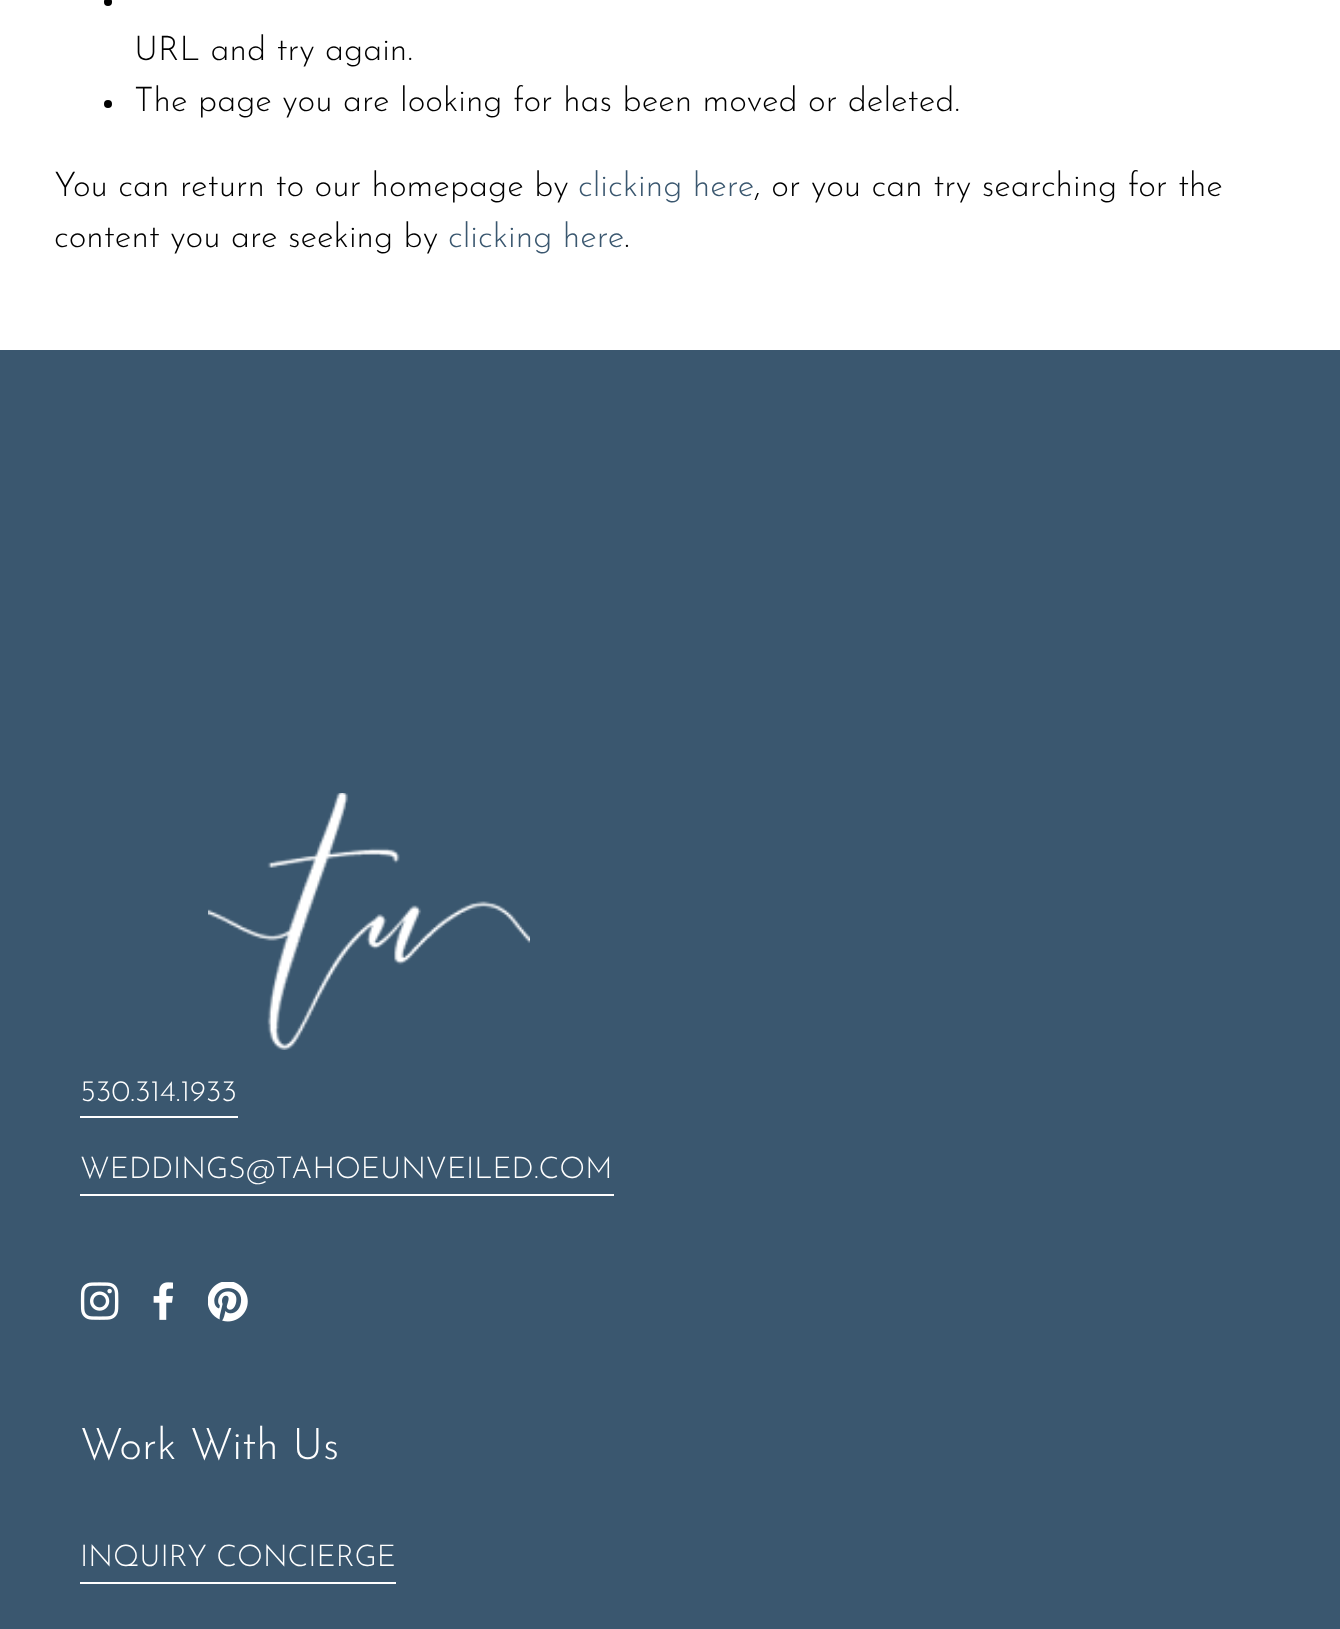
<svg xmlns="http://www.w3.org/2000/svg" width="1340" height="1629">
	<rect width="100%" height="100%" fill="#FFFFFF" />
	<circle cx="108" cy="2" r="4" fill="#000000" />
	<text x="134" y="60" font-family="Josefin Sans" font-size="34" font-weight="300" fill="#000000">URL and try again.</text>
	<circle cx="108" cy="104" r="4" fill="#000000" />
	<g font-family="Josefin Sans" font-size="34" font-weight="300" fill="#000000">
		<text x="134" y="111">The page you are looking for has been moved or deleted.</text>
		<text x="54" y="196">You can return to our homepage by</text>
	</g>
	<text x="578" y="196" font-family="Josefin Sans" font-size="34" font-weight="300" fill="#3A576F">clicking here</text>
	<g font-family="Josefin Sans" font-size="34" font-weight="300" fill="#000000">
		<text x="754" y="196">, or you can try searching for the</text>
		<text x="54" y="247">content you are seeking by</text>
	</g>
	<text x="448" y="247" font-family="Josefin Sans" font-size="34" font-weight="300" fill="#3A576F">clicking here</text>
	<text x="624" y="247" font-family="Josefin Sans" font-size="34" font-weight="300" fill="#000000">.</text>
	<rect x="0" y="350" width="1340" height="1279" fill="#3A576F" />
	<image x="208" y="793" width="322" height="257" href="assets/img1.png" />
	<rect x="80" y="1116" width="158" height="2" fill="#FFFFFF" />
	<text x="80" y="1101" font-family="Josefin Sans" font-size="30" font-weight="300" fill="#FFFFFF">530.314.1933</text>
	<rect x="80" y="1194" width="534" height="2" fill="#FFFFFF" />
	<text x="80" y="1178" font-family="Josefin Sans" font-size="30" font-weight="300" fill="#FFFFFF">WEDDINGS@TAHOEUNVEILED.COM</text>
	<image x="80" y="1282" width="39" height="38" href="assets/img2.png" />
	<image x="153" y="1282" width="20" height="38" href="assets/img3.png" />
	<image x="208" y="1282" width="40" height="40" href="assets/img4.png" />
	<text x="80" y="1459" font-family="Josefin Sans" font-size="43.75" font-weight="300" fill="#FFFFFF">Work With Us</text>
	<rect x="80" y="1582" width="316" height="2" fill="#FFFFFF" />
	<text x="80" y="1566" font-family="Josefin Sans" font-size="30" font-weight="300" fill="#FFFFFF">INQUIRY CONCIERGE</text>
</svg>
